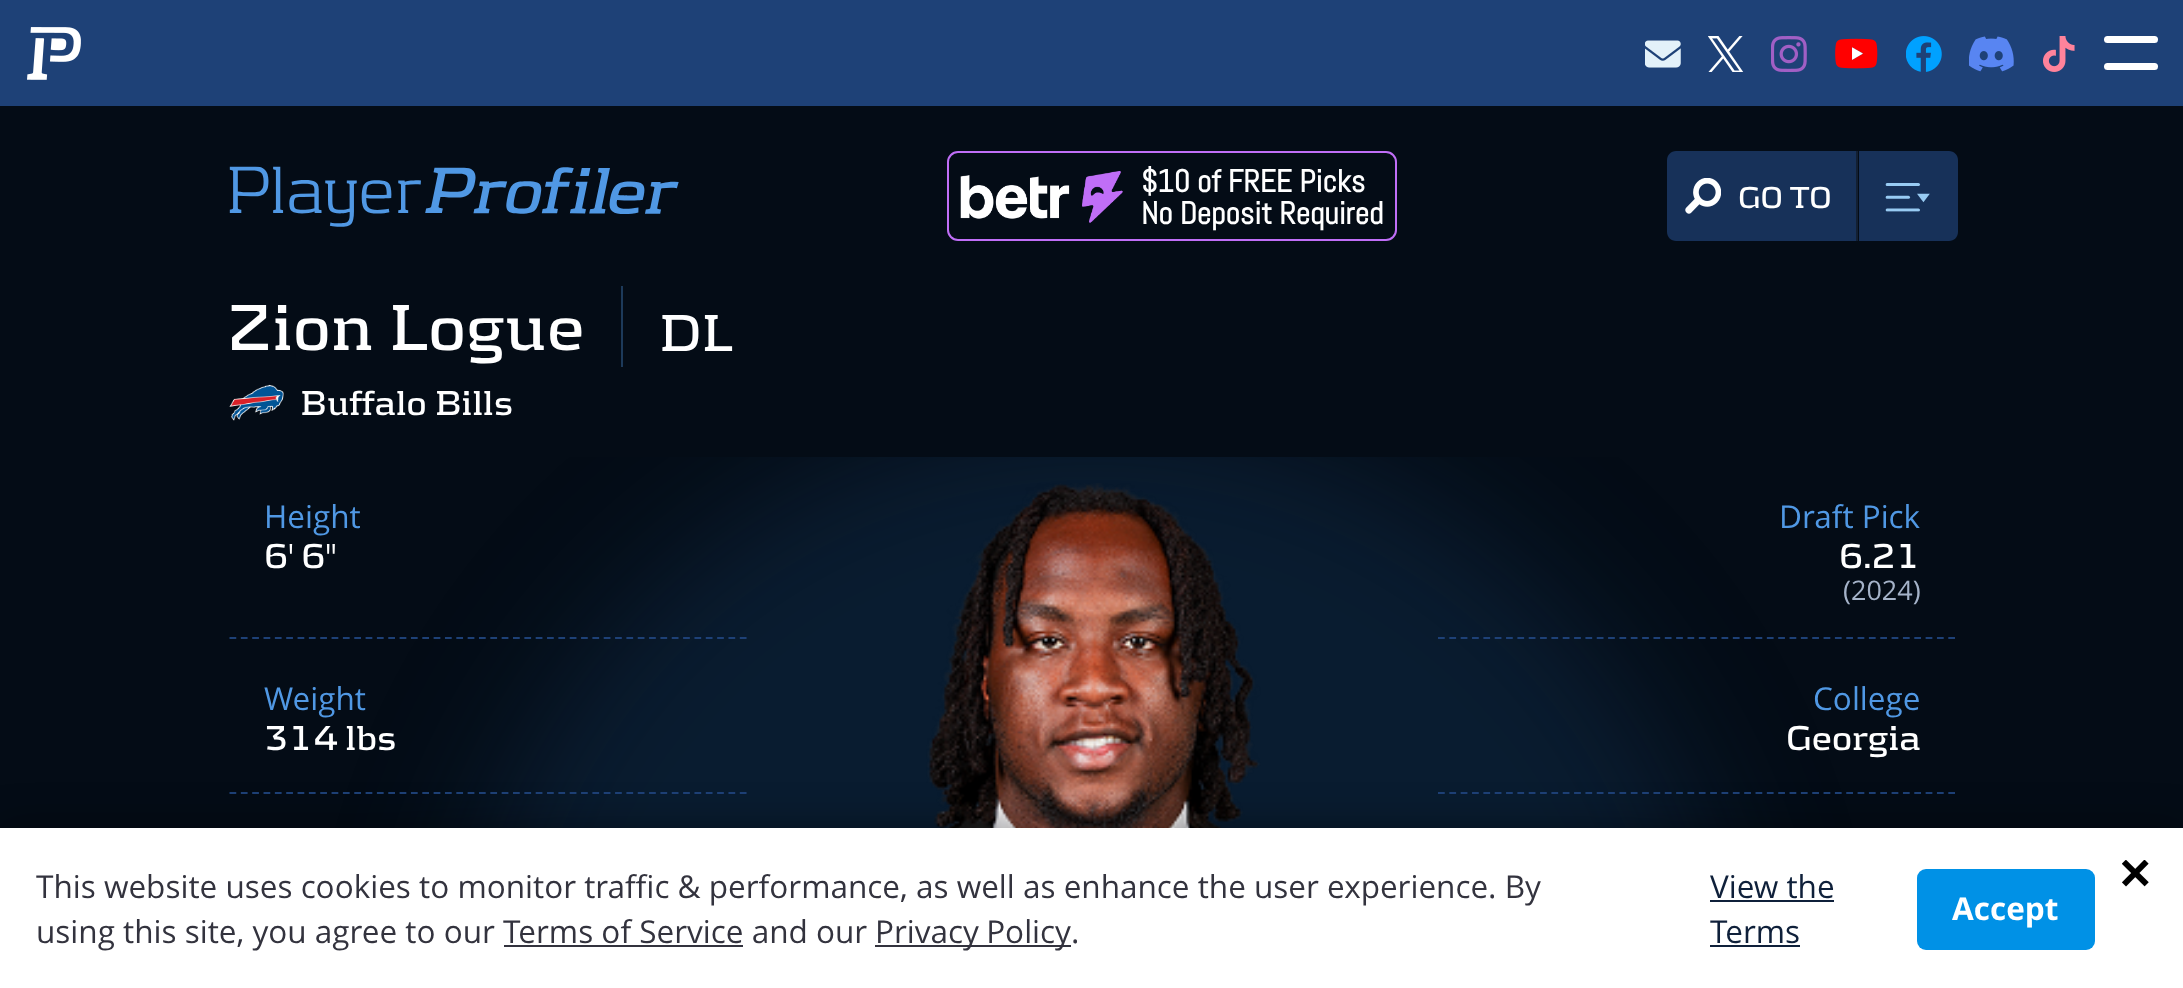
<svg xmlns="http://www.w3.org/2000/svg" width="2183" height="988">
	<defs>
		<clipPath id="clip1"><rect x="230" y="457" width="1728" height="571" /></clipPath>
	</defs>
	<rect width="100%" height="100%" fill="#040C16" />
	<rect x="0" y="0" width="2183" height="106" fill="#1E4177" />
	<image x="27" y="27" width="54" height="53" href="assets/img1.png" />
	<image x="1645" y="40" width="36" height="28" href="assets/img2.png" />
	<image x="1708" y="36" width="36" height="36" href="assets/img3.png" />
	<image x="1771" y="36" width="36" height="36" href="assets/img4.png" />
	<image x="1835" y="38" width="43" height="31" href="assets/img5.png" />
	<image x="1906" y="36" width="36" height="36" href="assets/img6.png" />
	<image x="1969" y="36" width="45" height="36" href="assets/img7.png" />
	<image x="2043" y="36" width="32" height="36" href="assets/img8.png" />
	<rect x="2104" y="36" width="54" height="7" rx="3.5" fill="#FFFFFF" />
	<rect x="2104" y="63" width="54" height="7" rx="3.5" fill="#FFFFFF" />
	<image x="229" y="166" width="450" height="61" href="assets/img9.png" />
	<rect x="948" y="152" width="448" height="88" rx="10" fill="none" stroke="#C06EF7" stroke-width="2" />
	<image x="960" y="171" width="163" height="52" href="assets/img10.png" />
	<g font-family="Abel" font-size="31.5" font-weight="700" fill="#FFFFFF">
		<text x="1141" y="192">$10 of FREE Picks</text>
		<text x="1141" y="224">No Deposit Required</text>
	</g>
	<path d="M1676 151H1856V241H1676C1671 241 1667 237 1667 232V160C1667 155 1671 151 1676 151Z" fill="#173159" />
	<image x="1685" y="178" width="36" height="36" href="assets/img11.png" />
	<text x="1738" y="208" font-family="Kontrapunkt" font-size="31.5" font-weight="700" fill="#FFFFFF">GO TO</text>
	<rect x="1856" y="151" width="2" height="90" fill="#132033" />
	<path d="M1859 151H1949C1954 151 1958 155 1958 160V232C1958 237 1954 241 1949 241H1859Z" fill="#173159" />
	<image x="1885" y="183" width="45" height="29" href="assets/img12.png" />
	<text x="228" y="350" font-family="Kontrapunkt" font-size="67.5" font-weight="700" fill="#FFFFFF">Zion Logue</text>
	<rect x="621" y="286" width="2" height="81" fill="#1D3A5A" />
	<text x="659" y="351" font-family="Kontrapunkt" font-size="54" font-weight="700" fill="#FFFFFF">DL</text>
	<image x="229" y="384" width="55" height="37" href="assets/img13.png" />
	<text x="300" y="415" font-family="Kontrapunkt" font-size="36" font-weight="700" fill="#FFFFFF">Buffalo Bills</text>
	<g clip-path="url(#clip1)">
		<rect x="446" y="412" width="1296" height="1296" rx="648" fill="#18436D" fill-opacity="0.3" filter="blur(67.5px)" />
	</g>
	<image x="926" y="483" width="335" height="345" href="assets/img14.png" />
	<path d="M229.5 638H747" fill="none" stroke="#1E4177" stroke-width="2.2" stroke-dasharray="6.75 4.59" />
	<text x="264" y="528" font-family="Open Sans" font-size="31.5" fill="#5098E4">Height</text>
	<text x="264" y="568" font-family="Kontrapunkt" font-size="36" font-weight="700" fill="#FFFFFF">6' 6"</text>
	<path d="M1438 638H1955" fill="none" stroke="#1E4177" stroke-width="2.2" stroke-dasharray="6.75 4.59" />
	<text x="1779" y="528" font-family="Open Sans" font-size="31.5" fill="#5098E4">Draft Pick</text>
	<text x="1839" y="568" font-family="Kontrapunkt" font-size="36" font-weight="700" fill="#FFFFFF">6.21</text>
	<text x="1843" y="600" font-family="Open Sans" font-size="27" fill="#A5B3C9">(2024)</text>
	<path d="M229.5 793H747" fill="none" stroke="#1E4177" stroke-width="2.2" stroke-dasharray="6.75 4.59" />
	<text x="264" y="710" font-family="Open Sans" font-size="31.5" fill="#5098E4">Weight</text>
	<text x="264" y="750" font-family="Kontrapunkt" font-size="36" font-weight="700" fill="#FFFFFF">314 lbs</text>
	<path d="M1438 793H1955" fill="none" stroke="#1E4177" stroke-width="2.2" stroke-dasharray="6.75 4.59" />
	<text x="1813" y="710" font-family="Open Sans" font-size="31.5" fill="#5098E4">College</text>
	<text x="1786" y="750" font-family="Kontrapunkt" font-size="36" font-weight="700" fill="#FFFFFF">Georgia</text>
	<rect x="0" y="828" width="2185" height="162" fill="#000000" fill-opacity="0.4" filter="blur(20px)" />
	<rect x="0" y="828" width="2183" height="160" fill="#FFFFFF" />
	<g font-family="Open Sans" font-size="31.5" fill="#33333E">
		<text x="36" y="898">This website uses cookies to monitor traffic &amp; performance, as well as enhance the user experience. By</text>
		<text x="36" y="943">using this site, you agree to our Terms of Service and our</text>
	</g>
	<rect x="875" y="945" width="196" height="2" fill="#33333E" />
	<g font-family="Open Sans" font-size="31.5" fill="#33333E">
		<text x="875" y="943" word-spacing="-1">Privacy Policy</text>
		<text x="1071" y="943">.</text>
	</g>
	<rect x="504" y="945" width="239" height="2" fill="#33333E" />
	<text x="1710" y="898" font-family="Open Sans" font-size="31.5" fill="#0F203A">View the</text>
	<rect x="1710" y="900" width="124" height="2" fill="#0F203A" />
	<text x="1710" y="943" font-family="Open Sans" font-size="31.5" fill="#0F203A">Terms</text>
	<rect x="1710" y="945" width="90" height="2" fill="#0F203A" />
	<rect x="1917" y="869" width="178" height="81" rx="9" fill="#0091E6" />
	<text x="1952" y="920" font-family="Open Sans" font-size="31.5" font-weight="700" fill="#FFFFFF">Accept</text>
	<image x="2122" y="860" width="27" height="27" href="assets/img15.png" />
</svg>
